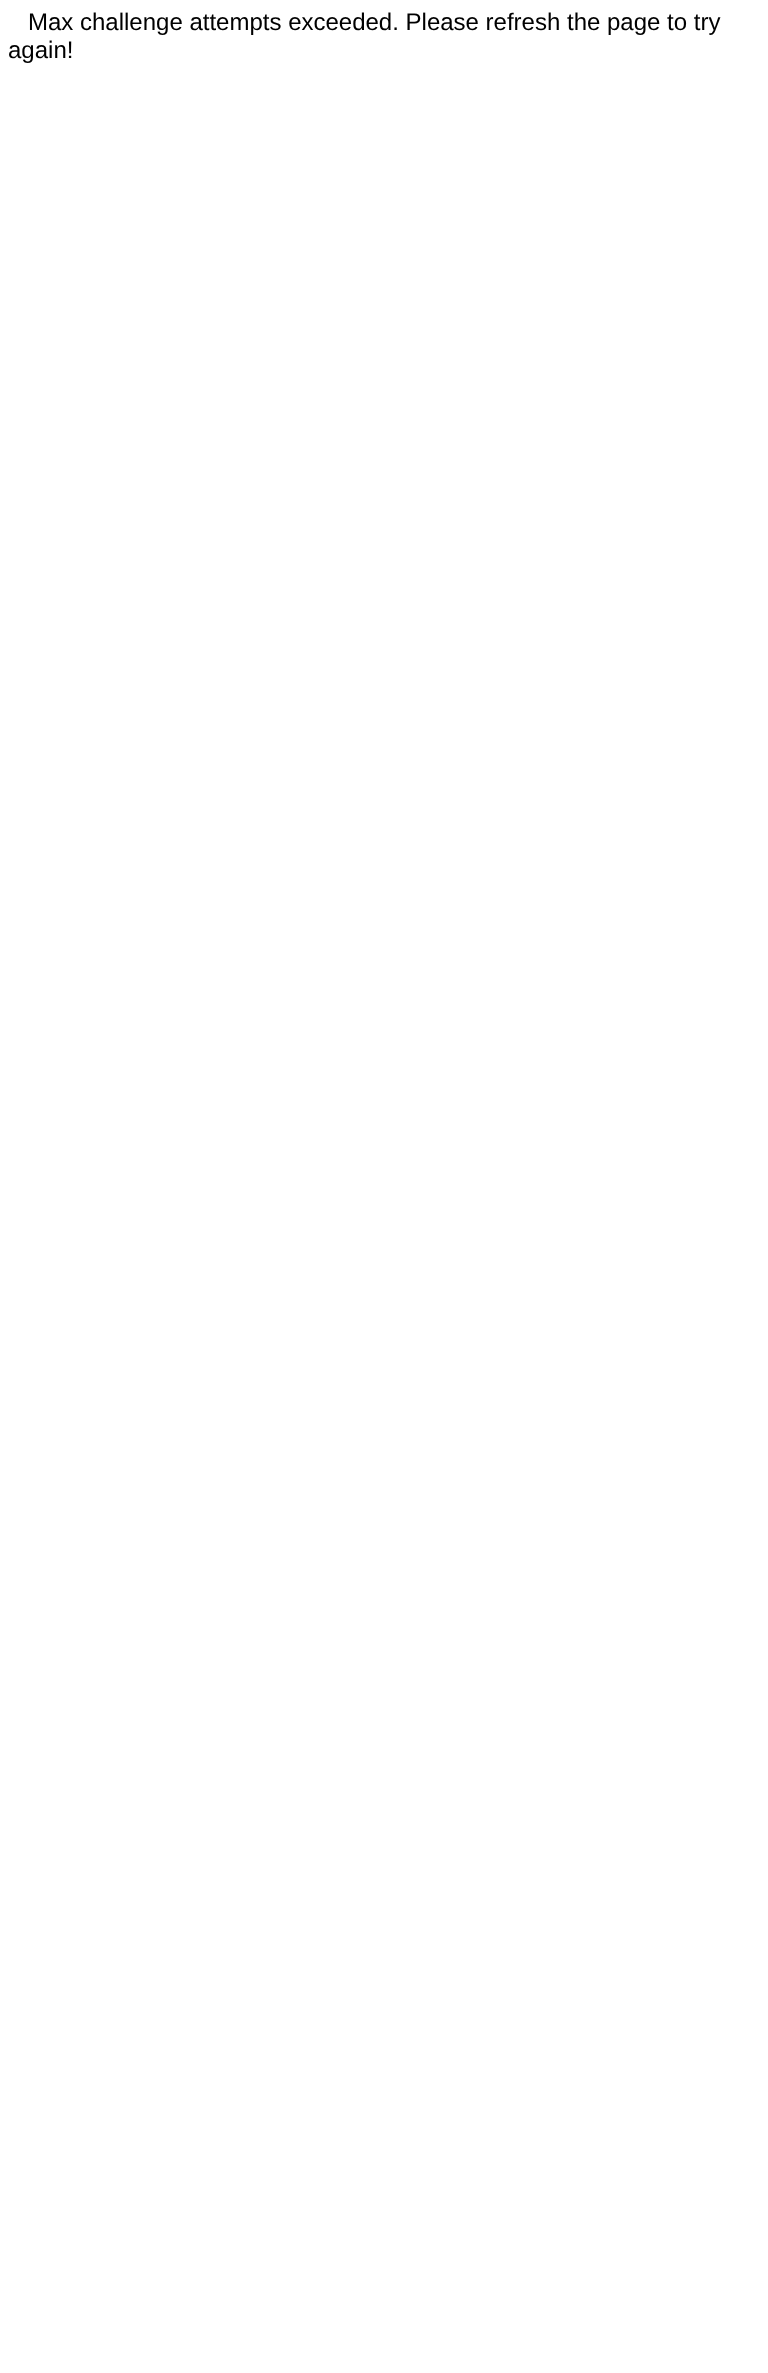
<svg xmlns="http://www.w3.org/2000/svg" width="768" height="2373">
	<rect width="100%" height="100%" fill="#FFFFFF" />
	<g font-family="Liberation Sans" font-size="24" fill="#000000">
		<text x="28" y="30">Max challenge attempts exceeded. Please refresh the page to try</text>
		<text x="8" y="58">again!</text>
	</g>
</svg>
